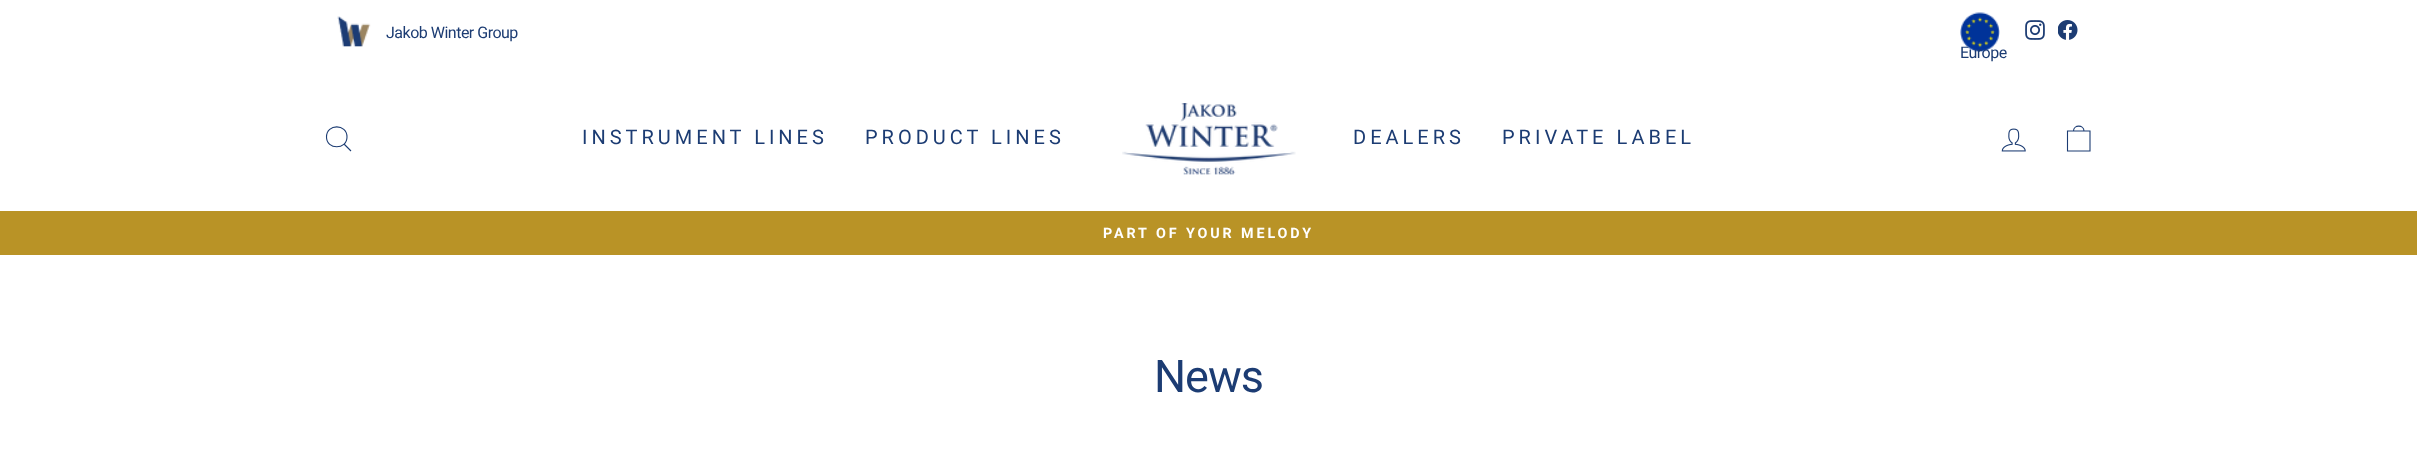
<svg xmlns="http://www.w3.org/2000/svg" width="2417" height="471">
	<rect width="100%" height="100%" fill="#FFFFFF" />
	<image x="337" y="16" width="34" height="31" href="assets/img1.png" />
	<text x="386" y="38" font-family="Roboto" font-size="16" letter-spacing="-0.5" fill="#1C3C73">Jakob Winter Group</text>
	<image x="2025" y="20" width="20" height="20" href="assets/img2.png" />
	<image x="2058" y="20" width="20" height="20" href="assets/img3.png" />
	<image x="1960" y="12" width="40" height="40" href="assets/img4.png" />
	<text x="1960" y="58" font-family="Roboto" font-size="16" letter-spacing="-0.5" fill="#1C3C73">Europe</text>
	<path d="M347 137C347 150 326.5 150 326.5 137C326.5 123.5 347 123.5 347 137ZM351 151L344 144" fill="none" stroke="#1C3C73" stroke-width="1.1" />
	<g font-family="Roboto" font-size="20" letter-spacing="4" fill="#1C3C73">
		<text x="582" y="144">INSTRUMENT LINES</text>
		<text x="865" y="144">PRODUCT LINES</text>
	</g>
	<image x="1122" y="103" width="174" height="72" href="assets/img5.png" />
	<g font-family="Roboto" font-size="20" letter-spacing="4" fill="#1C3C73">
		<text x="1353" y="144">DEALERS</text>
		<text x="1502" y="144">PRIVATE LABEL</text>
	</g>
	<image x="2001" y="128" width="25" height="24" href="assets/img6.png" />
	<path d="M2067.5 131H2090V151H2067.5ZM2073.5 131C2073.5 124.5 2084 124.5 2084 131" fill="none" stroke="#1C3C73" stroke-width="1.1" />
	<rect x="0" y="211" width="2417" height="44" fill="#B99326" />
	<text x="1103" y="238" font-family="Roboto" font-size="14.3" font-weight="700" letter-spacing="2.9" fill="#FFFFFF">PART OF YOUR MELODY</text>
	<text x="1154" y="392" font-family="Roboto" font-size="45" letter-spacing="-1" fill="#1C3C73">News</text>
</svg>
